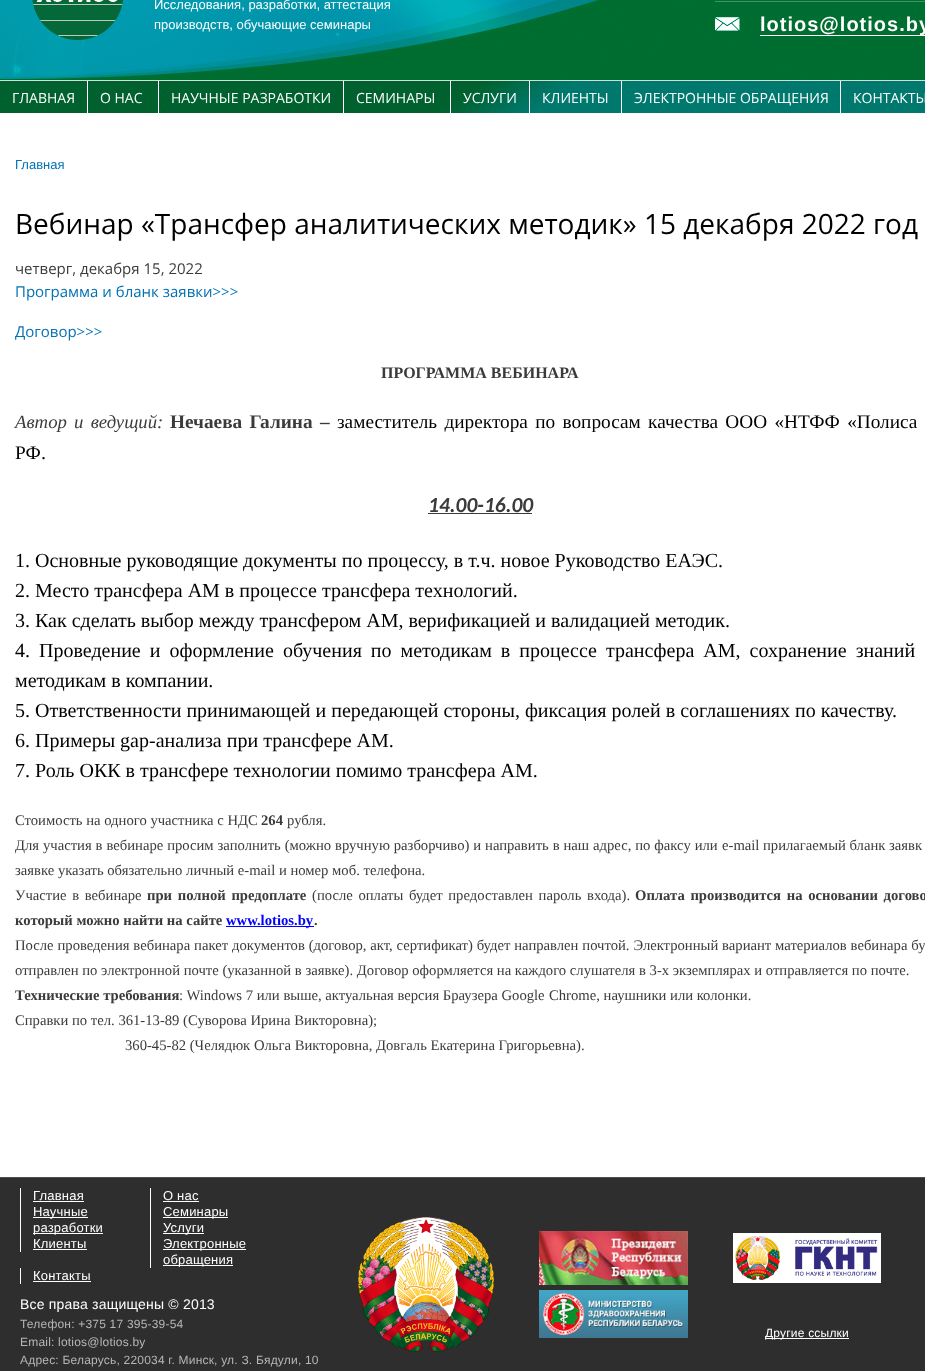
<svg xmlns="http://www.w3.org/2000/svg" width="925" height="1371">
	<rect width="100%" height="100%" fill="#FFFFFF" />
	<image x="0" y="0" width="925" height="80" href="assets/img1.png" />
	<image x="32" y="0" width="91" height="40" href="assets/img2.png" />
	<g font-family="Liberation Sans" font-size="13" fill="#FFFFFF">
		<text x="154" y="9">Исследования, разработки, аттестация</text>
		<text x="154" y="29">производств, обучающие семинары</text>
	</g>
	<rect x="715" y="1" width="210" height="1" fill="#409269" />
	<image x="715" y="17" width="25" height="14" href="assets/img3.png" />
	<rect x="760" y="35" width="165" height="1" fill="#FFFFFF" />
	<text x="760" y="31" font-family="Liberation Sans" font-size="20" font-weight="700" letter-spacing="1" fill="#FFFFFF">lotios@lotios.by</text>
	<image x="0" y="81" width="925" height="32" href="assets/img4.png" />
	<rect x="0" y="80" width="925" height="1" fill="#CCE2D7" />
	<rect x="87" y="81" width="1" height="33" fill="#FFFFFF" />
	<text x="12" y="103" font-family="Open Sans" font-size="14" fill="#FFFFFF">ГЛАВНАЯ</text>
	<rect x="158" y="81" width="1" height="33" fill="#FFFFFF" />
	<text x="100" y="103" font-family="Open Sans" font-size="14" fill="#FFFFFF">О НАС</text>
	<rect x="343" y="81" width="1" height="33" fill="#FFFFFF" />
	<text x="171" y="103" font-family="Open Sans" font-size="14" fill="#FFFFFF">НАУЧНЫЕ РАЗРАБОТКИ</text>
	<rect x="450" y="81" width="1" height="33" fill="#FFFFFF" />
	<text x="356" y="103" font-family="Open Sans" font-size="14" fill="#FFFFFF">СЕМИНАРЫ</text>
	<rect x="529" y="81" width="1" height="33" fill="#FFFFFF" />
	<text x="463" y="103" font-family="Open Sans" font-size="14" fill="#FFFFFF">УСЛУГИ</text>
	<rect x="621" y="81" width="1" height="33" fill="#FFFFFF" />
	<text x="542" y="103" font-family="Open Sans" font-size="14" fill="#FFFFFF">КЛИЕНТЫ</text>
	<rect x="840" y="81" width="1" height="33" fill="#FFFFFF" />
	<g font-family="Open Sans" font-size="14" fill="#FFFFFF">
		<text x="634" y="103">ЭЛЕКТРОННЫЕ ОБРАЩЕНИЯ</text>
		<text x="853" y="103">КОНТАКТЫ</text>
	</g>
	<text x="15" y="169" font-family="Liberation Sans" font-size="13" fill="#0071B3">Главная</text>
	<text x="15" y="234" font-family="Open Sans" font-size="28" fill="#000000">Вебинар «Трансфер аналитических методик» 15 декабря 2022 год</text>
	<text x="15" y="274" font-family="Open Sans" font-size="15" fill="#3B3B3B">четверг, декабря 15, 2022</text>
	<g font-family="Open Sans" font-size="15" fill="#0071B3">
		<text x="15" y="297">Программа и бланк заявки&gt;&gt;&gt;</text>
		<text x="15" y="337">Договор&gt;&gt;&gt;</text>
	</g>
	<text x="381" y="378" font-family="Liberation Serif" font-size="16" font-weight="700" fill="#3B3B3B">ПРОГРАММА ВЕБИНАРА</text>
	<text x="15" y="428" word-spacing="2.5" font-family="Liberation Serif" font-size="18.75" font-style="italic" fill="#3B3B3B">Автор и ведущий:</text>
	<text x="170" y="428" word-spacing="2.5" font-family="Liberation Serif" font-size="19.3" font-weight="700" fill="#3B3B3B">Нечаева Галина –</text>
	<g font-family="Liberation Serif" font-size="19.3" fill="#000000">
		<text x="337" y="428" word-spacing="2.5">заместитель директора по вопросам качества ООО «НТФФ «Полиса</text>
		<text x="15" y="459">РФ</text>
	</g>
	<text x="41" y="459" font-family="Liberation Serif" font-size="20" fill="#000000">.</text>
	<text x="428" y="512" font-family="Carlito" font-size="21.5" font-weight="700" font-style="italic" fill="#3B3B3B">14.00-16.00</text>
	<rect x="428" y="513" width="104" height="1" fill="#3B3B3B" />
	<g font-family="Liberation Serif" font-size="20" fill="#000000">
		<text x="15" y="567">1. Основные руководящие документы по процессу, в т.ч. новое Руководство ЕАЭС.</text>
		<text x="15" y="597">2. Место трансфера АМ в процессе трансфера технологий.</text>
		<text x="15" y="627">3. Как сделать выбор между трансфером АМ, верификацией и валидацией методик.</text>
		<text x="15" y="657" word-spacing="4">4. Проведение и оформление обучения по методикам в процессе трансфера АМ, сохранение знаний</text>
		<text x="15" y="687">методикам в компании.</text>
		<text x="15" y="717">5. Ответственности принимающей и передающей стороны, фиксация ролей в соглашениях по качеству.</text>
		<text x="15" y="747">6. Примеры gap-анализа при трансфере АМ.</text>
		<text x="15" y="777">7. Роль ОКК в трансфере технологии помимо трансфера АМ.</text>
	</g>
	<text x="15" y="825" font-family="Liberation Serif" font-size="14.67" fill="#3B3B3B">Стоимость на одного участника с НДС</text>
	<text x="261" y="825" font-family="Liberation Serif" font-size="14.67" font-weight="700" fill="#3B3B3B">264</text>
	<g font-family="Liberation Serif" font-size="14.67" fill="#3B3B3B">
		<text x="287" y="825">рубля.</text>
		<text x="15" y="850" word-spacing="0.25">Для участия в вебинаре просим заполнить (можно вручную разборчиво) и направить в наш адрес, по факсу или</text>
		<text x="722" y="850">e-mail</text>
		<text x="763" y="850">прилагаемый бланк заявк</text>
		<text x="15" y="875">заявке указать обязательно личный e-mail и номер моб. телефона.</text>
		<text x="15" y="900" word-spacing="2">Участие в вебинаре</text>
	</g>
	<text x="147" y="900" word-spacing="2" font-family="Liberation Serif" font-size="14.67" font-weight="700" fill="#3B3B3B">при полной предоплате</text>
	<text x="312" y="900" word-spacing="2" font-family="Liberation Serif" font-size="14.67" fill="#3B3B3B">(после оплаты будет предоставлен пароль входа).</text>
	<g font-family="Liberation Serif" font-size="14.67" font-weight="700" fill="#3B3B3B">
		<text x="635" y="900" word-spacing="2">Оплата производится на основании догово</text>
		<text x="15" y="925">который можно найти на сайте</text>
	</g>
	<rect x="226" y="926" width="88" height="1" fill="#0000FF" />
	<text x="226" y="925" font-family="Liberation Serif" font-size="14.67" font-weight="700" fill="#0000FF">www.lotios.by</text>
	<text x="314" y="925" font-family="Liberation Serif" font-size="14.67" font-weight="700" fill="#3B3B3B">.</text>
	<g font-family="Liberation Serif" font-size="14.67" fill="#3B3B3B">
		<text x="15" y="950" word-spacing="0.2">После проведения вебинара пакет документов (договор, акт, сертификат) будет направлен почтой. Электронный вариант материалов вебинара бу</text>
		<text x="15" y="975">отправлен по электронной почте (указанной в заявке). Договор оформляется на каждого слушателя в 3-х экземплярах и отправляется по почте.</text>
	</g>
	<text x="15" y="1000" font-family="Liberation Serif" font-size="14.67" font-weight="700" fill="#3B3B3B">Технические требования</text>
	<g font-family="Liberation Serif" font-size="14.67" fill="#3B3B3B">
		<text x="179" y="1000">: Windows 7 или выше, актуальная версия Браузера Google</text>
		<text x="549" y="1000">Chrome, наушники или колонки.</text>
		<text x="15" y="1025">Справки по тел. 361-13-89 (Суворова Ирина Викторовна);</text>
		<text x="125" y="1050">360-45-82 (Челядюк Ольга Викторовна, Довгаль Екатерина Григорьевна).</text>
	</g>
	<rect x="0" y="1178" width="925" height="193" fill="#2E2E2E" />
	<rect x="0" y="1177" width="925" height="1" fill="#4D4D4D" />
	<rect x="20" y="1188" width="1" height="64" fill="#FFFFFF" />
	<text x="33" y="1200" font-family="Liberation Sans" font-size="13" letter-spacing="0.2" fill="#FFFFFF">Главная</text>
	<rect x="33" y="1201" width="51" height="1" fill="#FFFFFF" />
	<rect x="150" y="1188" width="1" height="80" fill="#FFFFFF" />
	<text x="163" y="1200" font-family="Liberation Sans" font-size="13" letter-spacing="0.2" fill="#FFFFFF">О нас</text>
	<rect x="163" y="1201" width="36" height="1" fill="#FFFFFF" />
	<rect x="33" y="1217" width="55" height="1" fill="#FFFFFF" />
	<text x="33" y="1216" font-family="Liberation Sans" font-size="13" letter-spacing="0.2" fill="#FFFFFF">Научные</text>
	<rect x="33" y="1233" width="70" height="1" fill="#FFFFFF" />
	<text x="33" y="1232" font-family="Liberation Sans" font-size="13" letter-spacing="0.2" fill="#FFFFFF">разработки</text>
	<rect x="163" y="1217" width="65" height="1" fill="#FFFFFF" />
	<text x="163" y="1216" font-family="Liberation Sans" font-size="13" letter-spacing="0.2" fill="#FFFFFF">Семинары</text>
	<rect x="163" y="1233" width="41" height="1" fill="#FFFFFF" />
	<g font-family="Liberation Sans" font-size="13" letter-spacing="0.2" fill="#FFFFFF">
		<text x="163" y="1232">Услуги</text>
		<text x="33" y="1248">Клиенты</text>
	</g>
	<rect x="33" y="1249" width="54" height="1" fill="#FFFFFF" />
	<rect x="163" y="1249" width="83" height="1" fill="#FFFFFF" />
	<text x="163" y="1248" font-family="Liberation Sans" font-size="13" letter-spacing="0.2" fill="#FFFFFF">Электронные</text>
	<rect x="163" y="1265" width="70" height="1" fill="#FFFFFF" />
	<text x="163" y="1264" font-family="Liberation Sans" font-size="13" letter-spacing="0.2" fill="#FFFFFF">обращения</text>
	<rect x="20" y="1268" width="1" height="16" fill="#FFFFFF" />
	<text x="33" y="1280" font-family="Liberation Sans" font-size="13" letter-spacing="0.2" fill="#FFFFFF">Контакты</text>
	<rect x="33" y="1281" width="58" height="1" fill="#FFFFFF" />
	<text x="20" y="1309" font-family="Liberation Sans" font-size="14" letter-spacing="0.2" fill="#FFFFFF">Все права защищены © 2013</text>
	<g font-family="Liberation Sans" font-size="12" letter-spacing="0.2" fill="#B6B6B6">
		<text x="20" y="1328">Телефон: +375 17 395-39-54</text>
		<text x="20" y="1346">Email: lotios@lotios.by</text>
		<text x="20" y="1364">Адрес: Беларусь, 220034 г. Минск, ул. З. Бядули, 10</text>
	</g>
	<image x="358" y="1217" width="136" height="135" href="assets/img5.png" />
	<image x="539" y="1231" width="149" height="54" href="assets/img6.png" />
	<image x="539" y="1290" width="149" height="48" href="assets/img7.png" />
	<image x="733" y="1233" width="148" height="50" href="assets/img8.png" />
	<rect x="765" y="1338" width="84" height="1" fill="#FFFFFF" />
	<text x="765" y="1337" font-family="Liberation Sans" font-size="12" letter-spacing="0.2" fill="#FFFFFF">Другие ссылки</text>
</svg>
